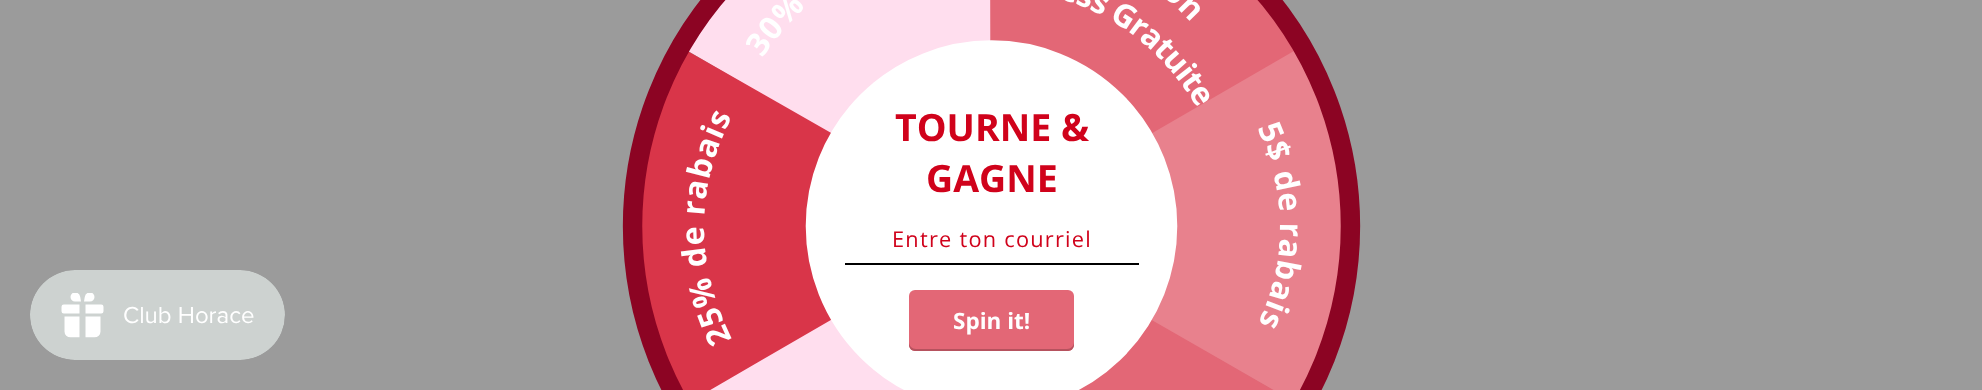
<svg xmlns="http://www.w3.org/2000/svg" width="1982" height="390">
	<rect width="100%" height="100%" fill="#9B9B9B" />
	<image x="30" y="270" width="255" height="90" href="assets/img1.png" />
	<image x="622" y="0" width="739" height="390" href="assets/img2.png" />
	<g font-family="Open Sans" font-size="37.5" font-weight="700" fill="#D0021B">
		<text x="895" y="141">TOURNE &amp;</text>
		<text x="926" y="192">GAGNE</text>
	</g>
	<rect x="845" y="263" width="294" height="2" fill="#000000" />
	<text x="892" y="247" font-family="Open Sans" font-size="21.75" letter-spacing="1.25" fill="#D0021B">Entre ton courriel</text>
	<rect x="909" y="290" width="165" height="61" rx="6" fill="#E36776" />
	<path d="M909 342V345C909 348 912 351 915 351H1068C1071 351 1074 348 1074 345V342C1074 346 1071 349 1067 349H916C912 349 909 346 909 342Z" fill="#B6525E" />
	<text x="953" y="329" font-family="Open Sans" font-size="22.5" font-weight="700" fill="#FFFFFF">Spin it!</text>
</svg>
